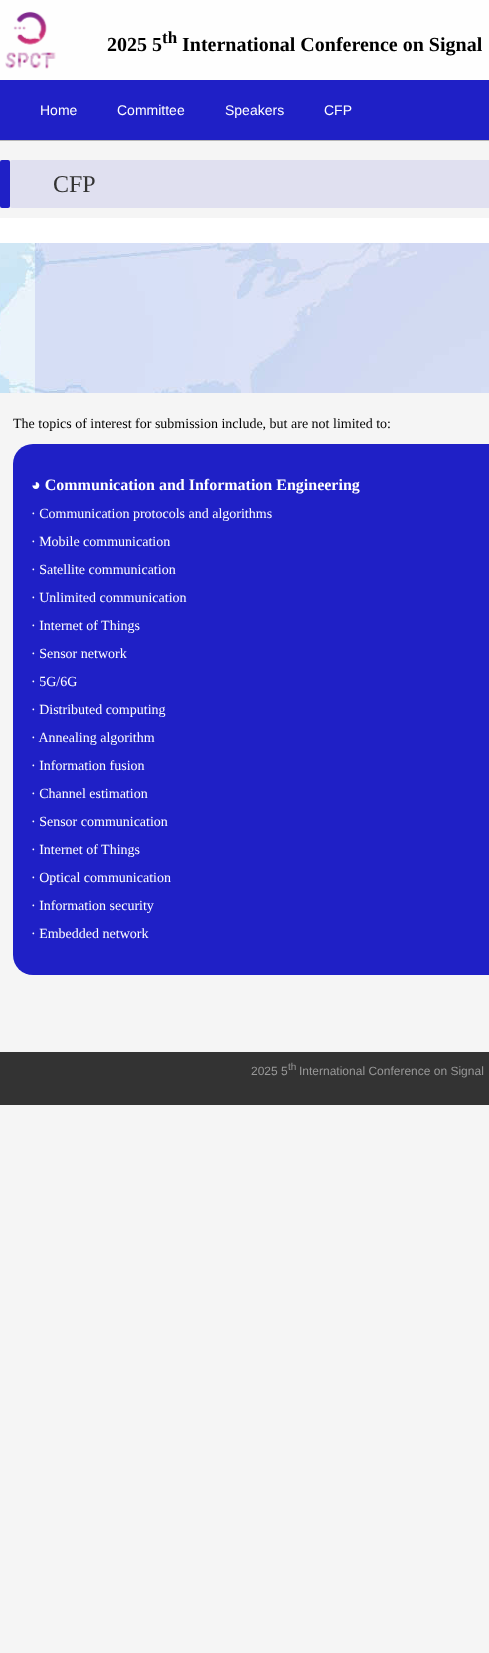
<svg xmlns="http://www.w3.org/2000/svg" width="489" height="1653">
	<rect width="100%" height="100%" fill="#F5F5F5" />
	<rect x="0" y="81" width="489" height="60" fill="#000000" fill-opacity="0.25" filter="blur(0.5px)" />
	<rect x="0" y="0" width="489" height="80" fill="#FEFEFE" />
	<image x="5" y="11" width="51" height="58" href="assets/img1.png" />
	<text x="107" y="51" font-family="Liberation Serif" font-size="20" font-weight="700" fill="#000000">2025 5</text>
	<text x="162" y="43" font-family="Liberation Serif" font-size="17" font-weight="700" fill="#000000">th</text>
	<text x="182" y="51" font-family="Liberation Serif" font-size="20" font-weight="700" fill="#000000">International Conference on Signal</text>
	<rect x="0" y="80" width="489" height="60" fill="#1F20C6" />
	<g font-family="Liberation Sans" font-size="14" fill="#FFFFFF">
		<text x="40" y="115">Home</text>
		<text x="117" y="115">Committee</text>
		<text x="225" y="115">Speakers</text>
		<text x="324" y="115">CFP</text>
	</g>
	<rect x="0" y="160" width="10" height="48" rx="2" fill="#1F20C6" />
	<rect x="10" y="160" width="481" height="48" rx="2" fill="#E0E0F0" />
	<text x="53" y="192" font-family="Liberation Serif" font-size="24" fill="#333333">CFP</text>
	<rect x="0" y="218" width="489" height="25" fill="#FFFFFF" />
	<image x="0" y="243" width="489" height="150" href="assets/img2.png" />
	<text x="13" y="428" font-family="Liberation Serif" font-size="14" fill="#000000">The topics of interest for submission include, but are not limited to:</text>
	<rect x="13" y="444" width="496" height="531" rx="20" fill="#1F20C6" />
	<text x="31" y="490" font-family="Liberation Serif" font-size="16" font-weight="700" fill="#FFFFFF">◕ Communication and Information Engineering</text>
	<g font-family="Liberation Serif" font-size="14" fill="#FFFFFF">
		<text x="31" y="518">· Communication protocols and algorithms</text>
		<text x="31" y="546">· Mobile communication</text>
		<text x="31" y="574">· Satellite communication</text>
		<text x="31" y="602">· Unlimited communication</text>
		<text x="31" y="630">· Internet of Things</text>
		<text x="31" y="658">· Sensor network</text>
		<text x="31" y="686">· 5G/6G</text>
		<text x="31" y="714">· Distributed computing</text>
		<text x="31" y="742">· Annealing algorithm</text>
		<text x="31" y="770">· Information fusion</text>
		<text x="31" y="798">· Channel estimation</text>
		<text x="31" y="826">· Sensor communication</text>
		<text x="31" y="854">· Internet of Things</text>
		<text x="31" y="882">· Optical communication</text>
		<text x="31" y="910">· Information security</text>
		<text x="31" y="938">· Embedded network</text>
	</g>
	<rect x="0" y="1052" width="489" height="53" fill="#333333" />
	<text x="251" y="1075" font-family="Liberation Sans" font-size="12" fill="#989898">2025 5</text>
	<text x="288" y="1070" font-family="Liberation Sans" font-size="10" fill="#989898">th</text>
	<text x="299" y="1075" font-family="Liberation Sans" font-size="12" fill="#989898">International Conference on Signal</text>
</svg>
